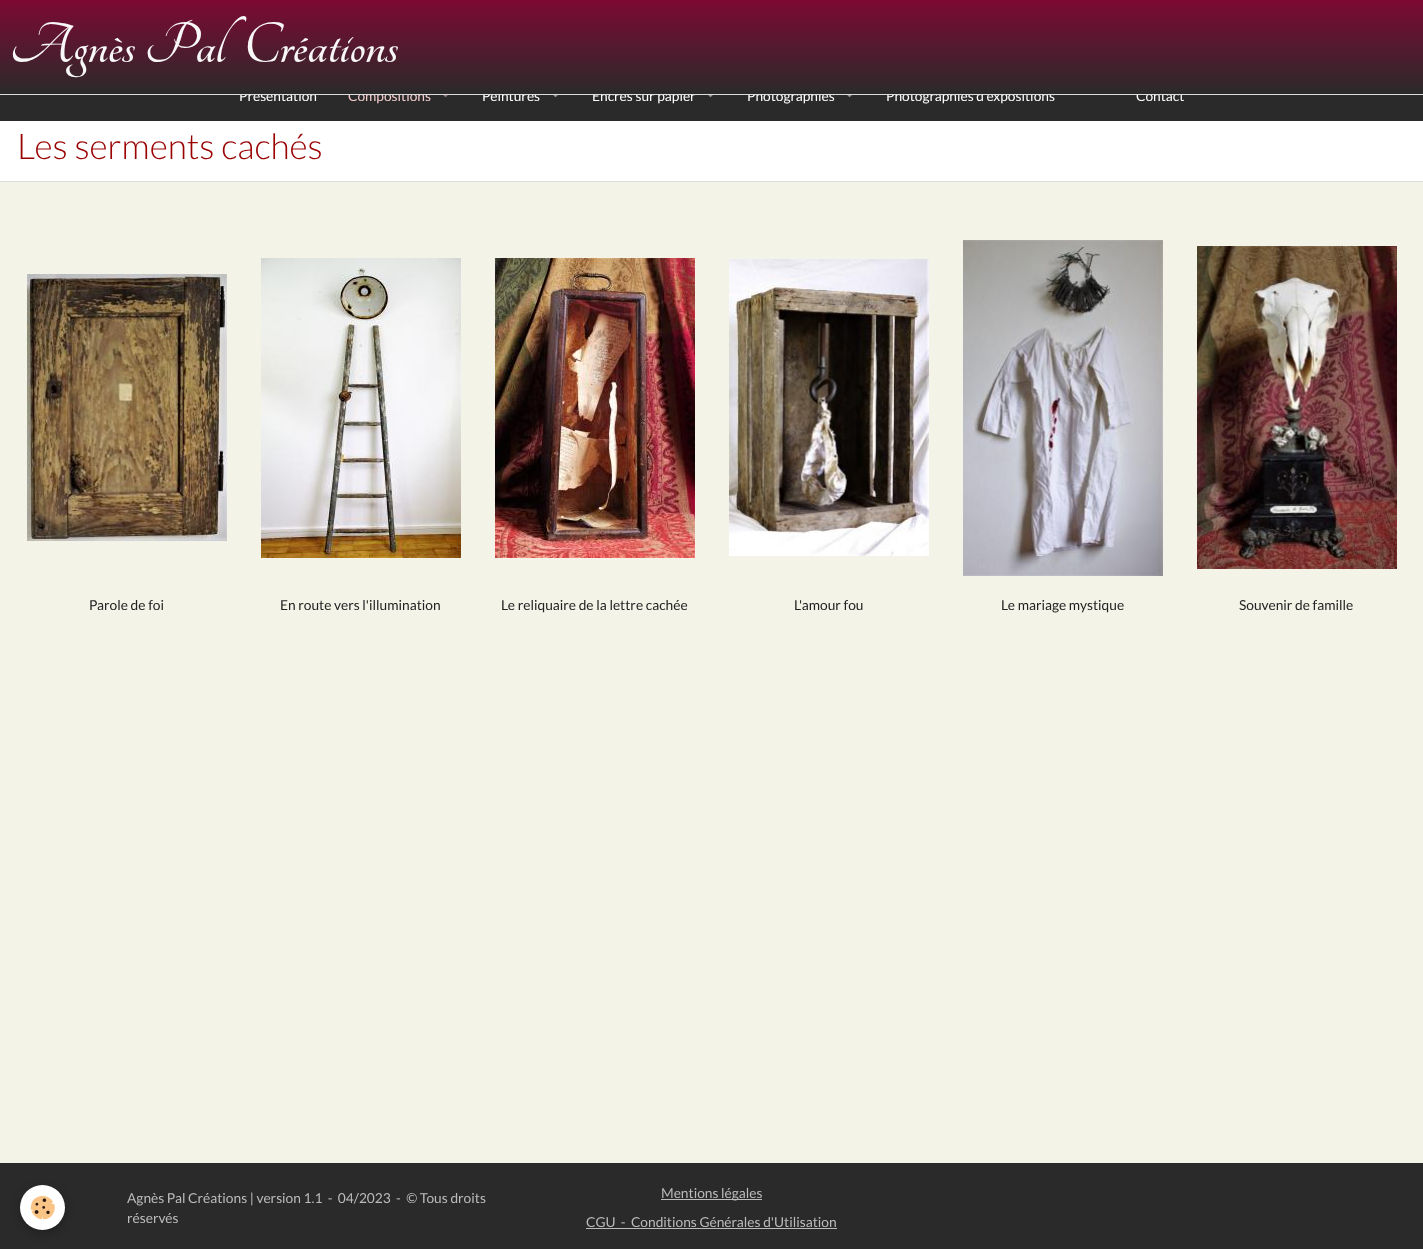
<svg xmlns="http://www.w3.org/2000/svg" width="1423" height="1249">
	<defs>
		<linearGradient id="g1" gradientUnits="userSpaceOnUse" x1="712" y1="94" x2="712" y2="0"><stop offset="0" stop-color="#2A2A2A" /><stop offset="1" stop-color="#7D0933" /></linearGradient>
	</defs>
	<rect width="100%" height="100%" fill="#F4F3E8" />
	<rect x="0" y="95" width="1423" height="26" fill="#2A2A2A" />
	<text x="239" y="101" font-family="Lato" font-size="13.75" fill="#FFFFFF">Présentation</text>
	<text x="348" y="101" font-family="Lato" font-size="13.75" fill="#F4CCCC">Compositions</text>
	<g font-family="Lato" font-size="13.75" fill="#FFFFFF">
		<text x="482" y="101">Peintures</text>
		<text x="592" y="101">Encres sur papier</text>
		<text x="747" y="101">Photographies</text>
		<text x="886" y="101">Photographies d'expositions</text>
		<text x="1136" y="101">Contact</text>
	</g>
	<rect x="0" y="94" width="1423" height="1" fill="#DCDCDC" />
	<rect x="0" y="0" width="1423" height="94" fill="url(#g1)" />
	<text x="10" y="62" font-family="Tangerine" font-size="62" font-weight="700" fill="#F8F8F8" xml:space="preserve">Agnès Pal  Créations</text>
	<image x="443" y="95" width="5" height="3" href="assets/img1.png" />
	<image x="553" y="95" width="5" height="3" href="assets/img2.png" />
	<image x="708" y="95" width="5" height="3" href="assets/img2.png" />
	<image x="847" y="95" width="5" height="3" href="assets/img2.png" />
	<rect x="0" y="121" width="1423" height="60" fill="#FFFFFF" />
	<rect x="0" y="181" width="1423" height="1" fill="#DDDDDD" />
	<text x="17" y="159" font-family="Lato" font-size="35.25" font-weight="300" fill="#990000">Les serments cachés</text>
	<image x="27" y="274" width="200" height="267" href="assets/img3.png" />
	<image x="261" y="258" width="200" height="300" href="assets/img4.png" />
	<image x="495" y="258" width="200" height="300" href="assets/img5.png" />
	<image x="729" y="259" width="200" height="297" href="assets/img6.png" />
	<image x="963" y="240" width="200" height="336" href="assets/img7.png" />
	<image x="1197" y="246" width="200" height="323" href="assets/img8.png" />
	<g font-family="Lato" font-size="13.75" fill="#222222">
		<text x="89" y="610">Parole de foi</text>
		<text x="280" y="610">En route vers l'illumination</text>
		<text x="501" y="610">Le reliquaire de la lettre cachée</text>
		<text x="794" y="610">L'amour fou</text>
		<text x="1001" y="610">Le mariage mystique</text>
		<text x="1239" y="610">Souvenir de famille</text>
	</g>
	<rect x="0" y="1163" width="1423" height="86" fill="#2A2A2A" />
	<rect x="20" y="1188" width="45" height="45" rx="22.5" fill="#000000" fill-opacity="0.24" filter="blur(5px)" />
	<circle cx="42.5" cy="1207.5" r="22.5" fill="#FFFFFF" />
	<image x="30" y="1195" width="25" height="25" href="assets/img9.png" />
	<g font-family="Lato" font-size="13.75" fill="#BCBCBC">
		<text x="127" y="1203" xml:space="preserve">Agnès Pal Créations | version 1.1  -  04/2023  -  © Tous droits</text>
		<text x="127" y="1223">réservés</text>
	</g>
	<rect x="661" y="1199" width="101" height="1" fill="#BCBCBC" />
	<g font-family="Lato" font-size="13.75" fill="#BCBCBC">
		<text x="661" y="1198">Mentions légales</text>
		<text x="586" y="1227" xml:space="preserve">CGU  -  Conditions Générales d'Utilisation</text>
	</g>
	<rect x="586" y="1228" width="251" height="1" fill="#BCBCBC" />
</svg>
